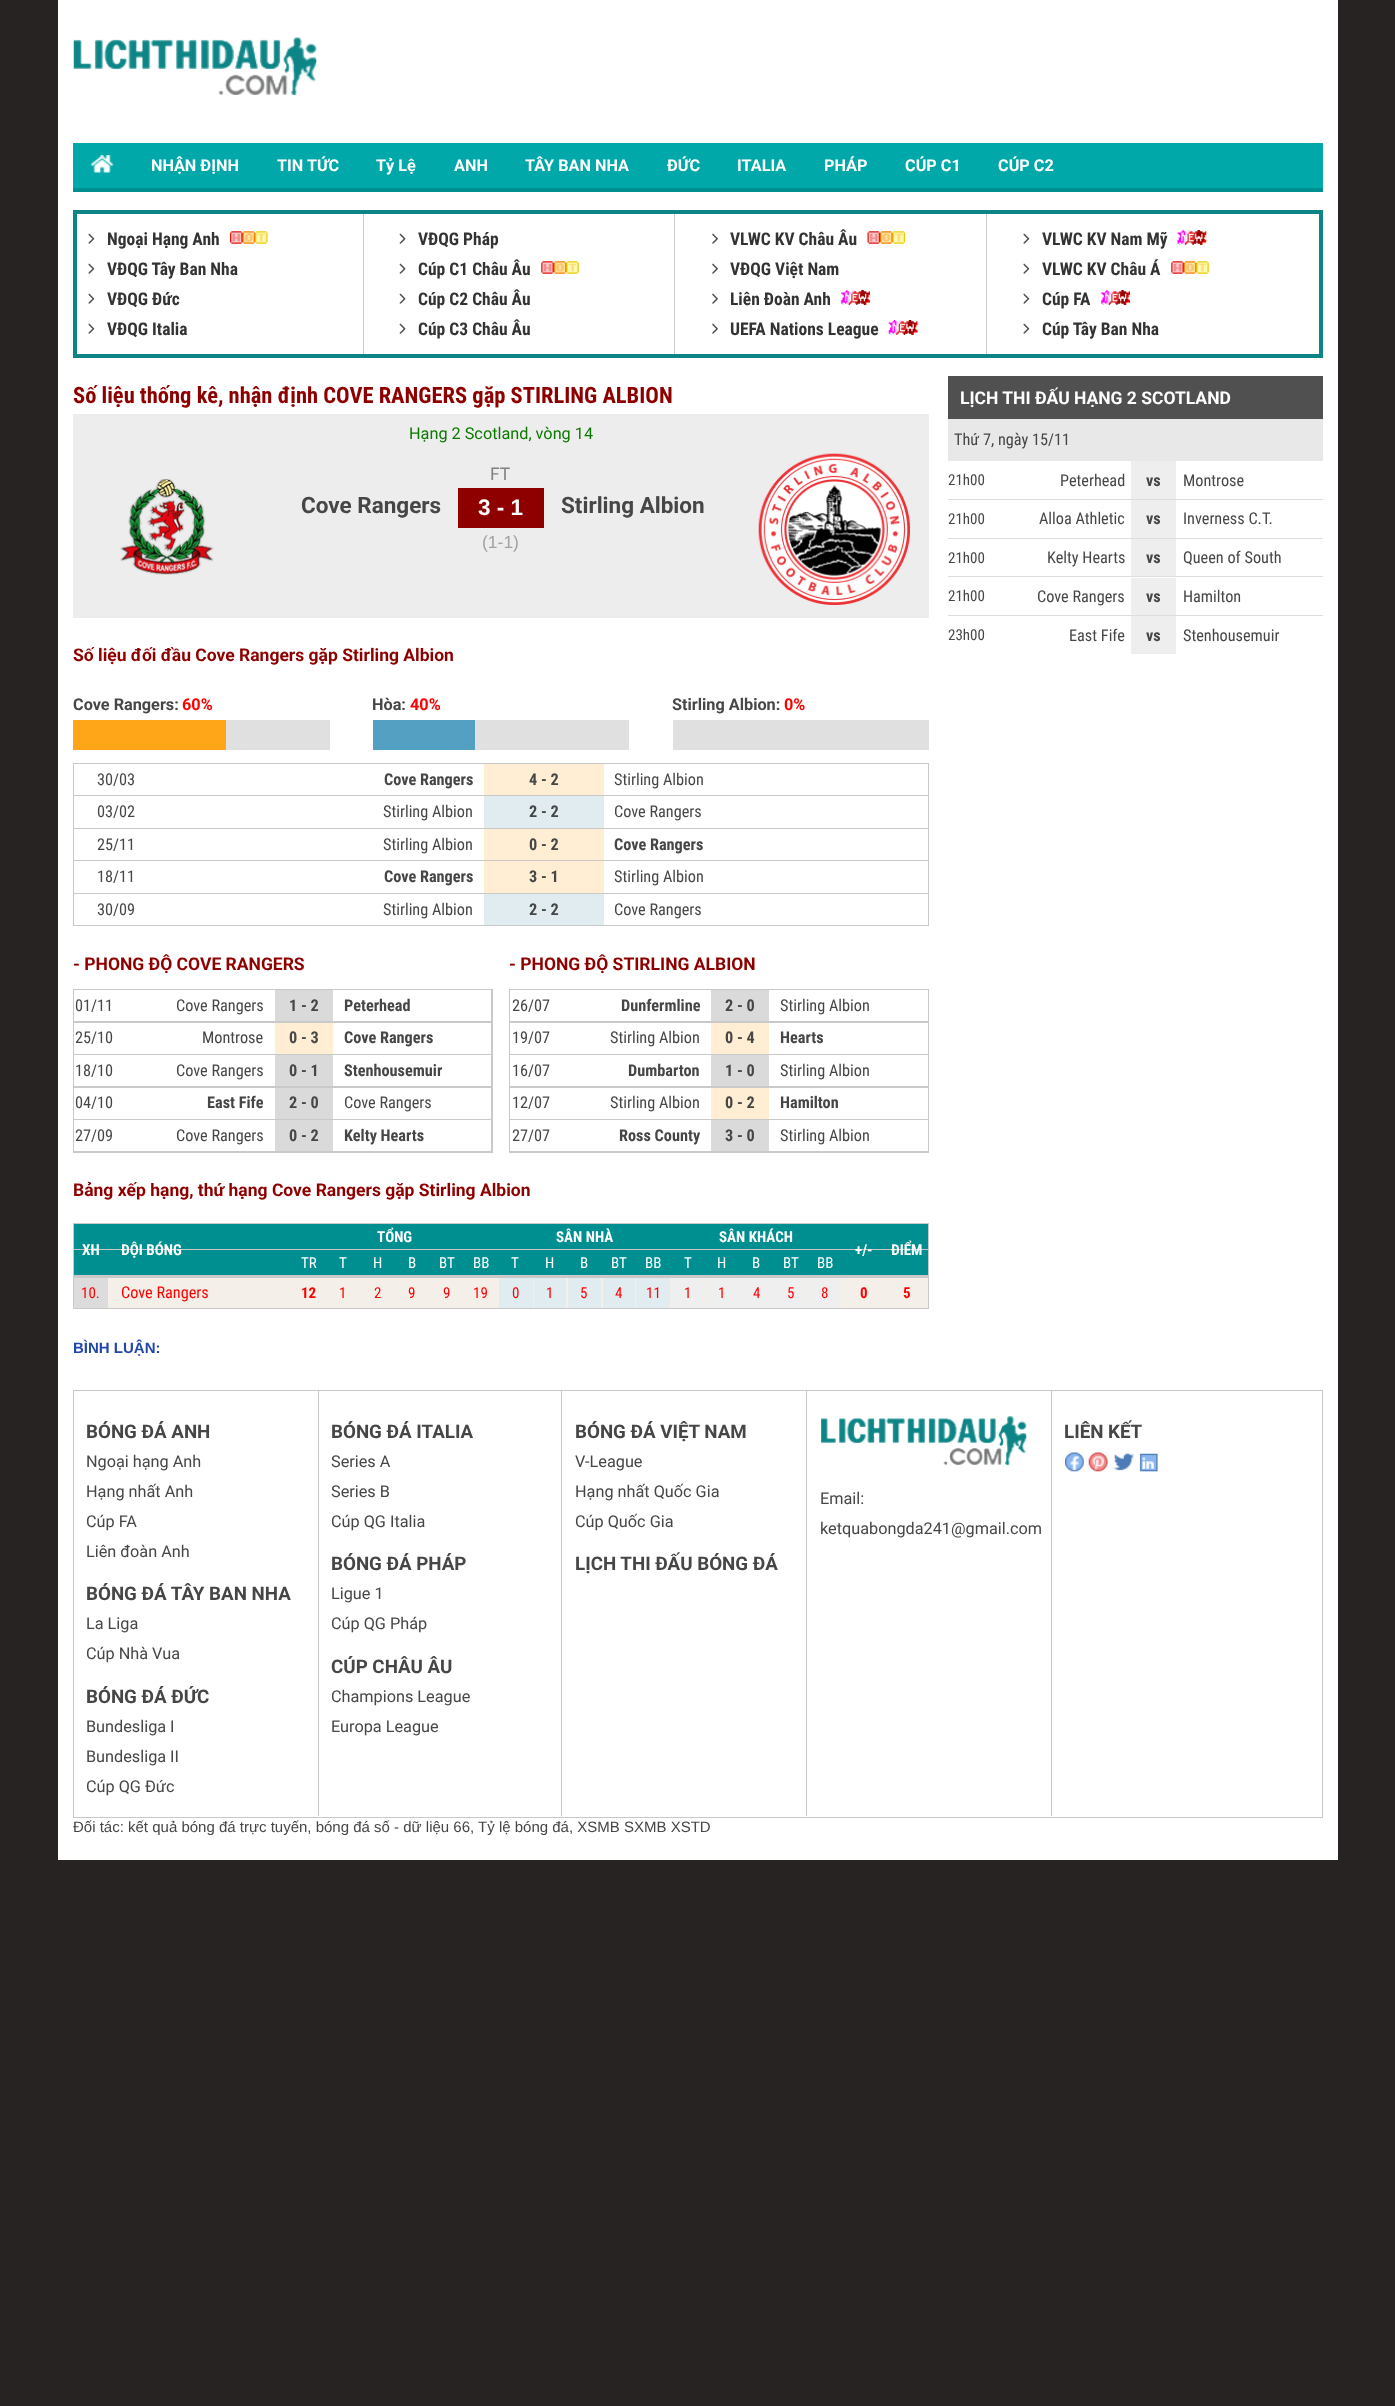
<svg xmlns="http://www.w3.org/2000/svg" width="1395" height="2406">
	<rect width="100%" height="100%" fill="#272322" />
	<rect x="58" y="0" width="1280" height="1860" fill="#FFFFFF" />
	<image x="73" y="37" width="244" height="58" href="assets/img1.png" />
	<rect x="73" y="143" width="1250" height="45" fill="#00A8A9" />
	<rect x="73" y="188" width="1250" height="4" fill="#008F90" />
	<image x="91" y="155" width="23" height="18" href="assets/img2.png" />
	<g font-family="Roboto" font-size="16.25" font-weight="700" fill="#FFFFFF">
		<text x="151" y="171">NHẬN ĐỊNH</text>
		<text x="277" y="171">TIN TỨC</text>
		<text x="376" y="171">Tỷ Lệ</text>
		<text x="454" y="171">ANH</text>
		<text x="525" y="171">TÂY BAN NHA</text>
		<text x="667" y="171">ĐỨC</text>
		<text x="737" y="171">ITALIA</text>
		<text x="824" y="171">PHÁP</text>
		<text x="905" y="171">CÚP C1</text>
		<text x="998" y="171">CÚP C2</text>
	</g>
	<rect x="75" y="212" width="1246" height="144" fill="none" stroke="#0D8586" stroke-width="4" />
	<rect x="363" y="214" width="1" height="140" fill="#CCCCCC" />
	<image x="88" y="233" width="7" height="11" href="assets/img3.png" />
	<text x="107" y="245" font-family="Roboto Condensed" font-size="17.5" font-weight="700" fill="#333333">Ngoại Hạng Anh</text>
	<image x="230" y="231" width="38" height="13" href="assets/img4.png" />
	<image x="88" y="263" width="7" height="11" href="assets/img3.png" />
	<text x="107" y="275" font-family="Roboto Condensed" font-size="17.5" font-weight="700" fill="#333333">VĐQG Tây Ban Nha</text>
	<image x="88" y="293" width="7" height="11" href="assets/img5.png" />
	<text x="107" y="305" font-family="Roboto Condensed" font-size="17.5" font-weight="700" fill="#333333">VĐQG Đức</text>
	<image x="88" y="323" width="7" height="11" href="assets/img3.png" />
	<text x="107" y="335" font-family="Roboto Condensed" font-size="17.5" font-weight="700" fill="#333333">VĐQG Italia</text>
	<rect x="674" y="214" width="1" height="140" fill="#CCCCCC" />
	<image x="399" y="233" width="7" height="11" href="assets/img6.png" />
	<text x="418" y="245" font-family="Roboto Condensed" font-size="17.5" font-weight="700" fill="#333333">VĐQG Pháp</text>
	<image x="399" y="263" width="7" height="11" href="assets/img6.png" />
	<text x="418" y="275" font-family="Roboto Condensed" font-size="17.5" font-weight="700" fill="#333333">Cúp C1 Châu Âu</text>
	<image x="541" y="261" width="38" height="13" href="assets/img7.png" />
	<image x="399" y="293" width="7" height="11" href="assets/img8.png" />
	<text x="418" y="305" font-family="Roboto Condensed" font-size="17.5" font-weight="700" fill="#333333">Cúp C2 Châu Âu</text>
	<image x="399" y="323" width="7" height="11" href="assets/img6.png" />
	<text x="418" y="335" font-family="Roboto Condensed" font-size="17.5" font-weight="700" fill="#333333">Cúp C3 Châu Âu</text>
	<rect x="986" y="214" width="1" height="140" fill="#CCCCCC" />
	<image x="712" y="233" width="6" height="11" href="assets/img9.png" />
	<text x="730" y="245" font-family="Roboto Condensed" font-size="17.5" font-weight="700" fill="#333333">VLWC KV Châu Âu</text>
	<image x="867" y="231" width="38" height="13" href="assets/img10.png" />
	<image x="712" y="263" width="6" height="11" href="assets/img9.png" />
	<text x="730" y="275" font-family="Roboto Condensed" font-size="17.5" font-weight="700" fill="#333333">VĐQG Việt Nam</text>
	<image x="712" y="293" width="6" height="11" href="assets/img11.png" />
	<text x="730" y="305" font-family="Roboto Condensed" font-size="17.5" font-weight="700" fill="#333333">Liên Đoàn Anh</text>
	<image x="841" y="290" width="29" height="15" href="assets/img12.png" />
	<image x="712" y="323" width="6" height="11" href="assets/img9.png" />
	<text x="730" y="335" font-family="Roboto Condensed" font-size="17.5" font-weight="700" fill="#333333">UEFA Nations League</text>
	<image x="888" y="320" width="30" height="15" href="assets/img13.png" />
	<image x="1023" y="233" width="7" height="11" href="assets/img3.png" />
	<text x="1042" y="245" font-family="Roboto Condensed" font-size="17.5" font-weight="700" fill="#333333">VLWC KV Nam Mỹ</text>
	<image x="1177" y="230" width="30" height="15" href="assets/img14.png" />
	<image x="1023" y="263" width="7" height="11" href="assets/img3.png" />
	<text x="1042" y="275" font-family="Roboto Condensed" font-size="17.5" font-weight="700" fill="#333333">VLWC KV Châu Á</text>
	<image x="1171" y="261" width="38" height="13" href="assets/img7.png" />
	<image x="1023" y="293" width="7" height="11" href="assets/img5.png" />
	<text x="1042" y="305" font-family="Roboto Condensed" font-size="17.5" font-weight="700" fill="#333333">Cúp FA</text>
	<image x="1101" y="290" width="29" height="15" href="assets/img12.png" />
	<image x="1023" y="323" width="7" height="11" href="assets/img3.png" />
	<text x="1042" y="335" font-family="Roboto Condensed" font-size="17.5" font-weight="700" fill="#333333">Cúp Tây Ban Nha</text>
	<text x="73" y="403" font-family="Roboto Condensed" font-size="22.5" font-weight="700" fill="#8E0000">Số liệu thống kê, nhận định COVE RANGERS gặp STIRLING ALBION</text>
	<rect x="73" y="414" width="856" height="204" fill="#EDEDED" />
	<text x="409" y="439" font-family="Roboto" font-size="16.25" fill="#0B7900">Hạng 2 Scotland, vòng 14</text>
	<image x="120" y="479" width="94" height="96" href="assets/img15.png" />
	<text x="301" y="513" font-family="Roboto" font-size="22.5" font-weight="700" fill="#464646">Cove Rangers</text>
	<text x="490" y="480" font-family="Roboto" font-size="17.5" fill="#828282">FT</text>
	<rect x="458" y="488" width="86" height="40" fill="#8E0000" />
	<text x="478" y="515" font-family="Liberation Sans" font-size="22.5" font-weight="700" fill="#FFFFFF">3 - 1</text>
	<text x="482" y="548" font-family="Liberation Sans" font-size="17.5" fill="#A2A2A2">(1-1)</text>
	<text x="561" y="513" font-family="Roboto" font-size="22.5" font-weight="700" fill="#464646">Stirling Albion</text>
	<image x="758" y="453" width="152" height="152" href="assets/img16.png" />
	<text x="73" y="661" font-family="Roboto" font-size="17.5" font-weight="700" fill="#8E0000">Số liệu đối đầu Cove Rangers gặp Stirling Albion</text>
	<text x="73" y="710" font-family="Roboto" font-size="16.25" font-weight="700" fill="#464646">Cove Rangers:</text>
	<text x="182" y="710" font-family="Roboto" font-size="16.25" font-weight="700" fill="#FF0000">60%</text>
	<rect x="226" y="720" width="104" height="30" fill="#E0E0E0" />
	<rect x="73" y="720" width="153" height="30" fill="#FFA517" />
	<text x="372" y="710" font-family="Roboto" font-size="16.25" font-weight="700" fill="#464646">Hòa:</text>
	<text x="410" y="710" font-family="Roboto" font-size="16.25" font-weight="700" fill="#FF0000">40%</text>
	<rect x="475" y="720" width="154" height="30" fill="#E0E0E0" />
	<rect x="373" y="720" width="102" height="30" fill="#53A0C3" />
	<text x="672" y="710" font-family="Roboto" font-size="16.25" font-weight="700" fill="#464646">Stirling Albion:</text>
	<text x="784" y="710" font-family="Roboto" font-size="16.25" font-weight="700" fill="#FF0000">0%</text>
	<rect x="673" y="720" width="256" height="30" fill="#E0E0E0" />
	<rect x="73" y="763" width="856" height="163" fill="#C9C9C9" />
	<rect x="74" y="764" width="854" height="31" fill="#FFFFFF" />
	<text x="97" y="785" font-family="Roboto Condensed" font-size="16.25" fill="#464646">30/03</text>
	<text x="384" y="785" font-family="Roboto Condensed" font-size="16.25" font-weight="700" fill="#464646">Cove Rangers</text>
	<rect x="484" y="764" width="120" height="31" fill="#FFEED3" />
	<text x="529" y="785" font-family="Roboto Condensed" font-size="16.25" font-weight="700" fill="#464646">4 - 2</text>
	<text x="614" y="785" font-family="Roboto Condensed" font-size="16.25" fill="#464646">Stirling Albion</text>
	<rect x="74" y="796" width="854" height="32" fill="#FFFFFF" />
	<g font-family="Roboto Condensed" font-size="16.25" fill="#464646">
		<text x="97" y="817">03/02</text>
		<text x="383" y="817">Stirling Albion</text>
	</g>
	<rect x="484" y="796" width="120" height="32" fill="#E1ECF1" />
	<text x="529" y="817" font-family="Roboto Condensed" font-size="16.25" font-weight="700" fill="#464646">2 - 2</text>
	<text x="614" y="817" font-family="Roboto Condensed" font-size="16.25" fill="#464646">Cove Rangers</text>
	<rect x="74" y="829" width="854" height="31" fill="#FFFFFF" />
	<g font-family="Roboto Condensed" font-size="16.25" fill="#464646">
		<text x="97" y="850">25/11</text>
		<text x="383" y="850">Stirling Albion</text>
	</g>
	<rect x="484" y="829" width="120" height="31" fill="#FFEED3" />
	<g font-family="Roboto Condensed" font-size="16.25" font-weight="700" fill="#464646">
		<text x="529" y="850">0 - 2</text>
		<text x="614" y="850">Cove Rangers</text>
	</g>
	<rect x="74" y="861" width="854" height="32" fill="#FFFFFF" />
	<text x="97" y="882" font-family="Roboto Condensed" font-size="16.25" fill="#464646">18/11</text>
	<text x="384" y="882" font-family="Roboto Condensed" font-size="16.25" font-weight="700" fill="#464646">Cove Rangers</text>
	<rect x="484" y="861" width="120" height="32" fill="#FFEED3" />
	<text x="529" y="882" font-family="Roboto Condensed" font-size="16.25" font-weight="700" fill="#464646">3 - 1</text>
	<text x="614" y="882" font-family="Roboto Condensed" font-size="16.25" fill="#464646">Stirling Albion</text>
	<rect x="74" y="894" width="854" height="31" fill="#FFFFFF" />
	<g font-family="Roboto Condensed" font-size="16.25" fill="#464646">
		<text x="97" y="915">30/09</text>
		<text x="383" y="915">Stirling Albion</text>
	</g>
	<rect x="484" y="894" width="120" height="31" fill="#E1ECF1" />
	<text x="529" y="915" font-family="Roboto Condensed" font-size="16.25" font-weight="700" fill="#464646">2 - 2</text>
	<text x="614" y="915" font-family="Roboto Condensed" font-size="16.25" fill="#464646">Cove Rangers</text>
	<text x="73" y="970" font-family="Roboto" font-size="17.5" font-weight="700" fill="#8E0000">- PHONG ĐỘ COVE RANGERS</text>
	<rect x="73" y="989" width="420" height="164" fill="#C9C9C9" />
	<rect x="74" y="990" width="417" height="31" fill="#FFFFFF" />
	<g font-family="Roboto Condensed" font-size="16.25" fill="#464646">
		<text x="75" y="1011">01/11</text>
		<text x="176" y="1011">Cove Rangers</text>
	</g>
	<rect x="275" y="990" width="58" height="31" fill="#DADADA" />
	<g font-family="Roboto Condensed" font-size="16.25" font-weight="700" fill="#464646">
		<text x="289" y="1011">1 - 2</text>
		<text x="344" y="1011">Peterhead</text>
	</g>
	<rect x="74" y="1023" width="417" height="31" fill="#FFFFFF" />
	<g font-family="Roboto Condensed" font-size="16.25" fill="#464646">
		<text x="75" y="1043">25/10</text>
		<text x="202" y="1043">Montrose</text>
	</g>
	<rect x="275" y="1023" width="58" height="31" fill="#FFEED3" />
	<g font-family="Roboto Condensed" font-size="16.25" font-weight="700" fill="#464646">
		<text x="289" y="1043">0 - 3</text>
		<text x="344" y="1043">Cove Rangers</text>
	</g>
	<rect x="74" y="1055" width="417" height="31" fill="#FFFFFF" />
	<g font-family="Roboto Condensed" font-size="16.25" fill="#464646">
		<text x="75" y="1076">18/10</text>
		<text x="176" y="1076">Cove Rangers</text>
	</g>
	<rect x="275" y="1055" width="58" height="31" fill="#DADADA" />
	<g font-family="Roboto Condensed" font-size="16.25" font-weight="700" fill="#464646">
		<text x="289" y="1076">0 - 1</text>
		<text x="344" y="1076">Stenhousemuir</text>
	</g>
	<rect x="74" y="1088" width="417" height="31" fill="#FFFFFF" />
	<text x="75" y="1108" font-family="Roboto Condensed" font-size="16.25" fill="#464646">04/10</text>
	<text x="207" y="1108" font-family="Roboto Condensed" font-size="16.25" font-weight="700" fill="#464646">East Fife</text>
	<rect x="275" y="1088" width="58" height="31" fill="#DADADA" />
	<text x="289" y="1108" font-family="Roboto Condensed" font-size="16.25" font-weight="700" fill="#464646">2 - 0</text>
	<text x="344" y="1108" font-family="Roboto Condensed" font-size="16.25" fill="#464646">Cove Rangers</text>
	<rect x="74" y="1120" width="417" height="31" fill="#FFFFFF" />
	<g font-family="Roboto Condensed" font-size="16.25" fill="#464646">
		<text x="75" y="1141">27/09</text>
		<text x="176" y="1141">Cove Rangers</text>
	</g>
	<rect x="275" y="1120" width="58" height="31" fill="#DADADA" />
	<g font-family="Roboto Condensed" font-size="16.25" font-weight="700" fill="#464646">
		<text x="289" y="1141">0 - 2</text>
		<text x="344" y="1141">Kelty Hearts</text>
	</g>
	<text x="509" y="970" font-family="Roboto" font-size="17.5" font-weight="700" fill="#8E0000">- PHONG ĐỘ STIRLING ALBION</text>
	<rect x="509" y="989" width="420" height="164" fill="#C9C9C9" />
	<rect x="510" y="990" width="418" height="31" fill="#FFFFFF" />
	<text x="512" y="1011" font-family="Roboto Condensed" font-size="16.25" fill="#464646">26/07</text>
	<text x="621" y="1011" font-family="Roboto Condensed" font-size="16.25" font-weight="700" fill="#464646">Dunfermline</text>
	<rect x="711" y="990" width="58" height="31" fill="#DADADA" />
	<text x="725" y="1011" font-family="Roboto Condensed" font-size="16.25" font-weight="700" fill="#464646">2 - 0</text>
	<text x="780" y="1011" font-family="Roboto Condensed" font-size="16.25" fill="#464646">Stirling Albion</text>
	<rect x="510" y="1023" width="418" height="31" fill="#FFFFFF" />
	<g font-family="Roboto Condensed" font-size="16.25" fill="#464646">
		<text x="512" y="1043">19/07</text>
		<text x="610" y="1043">Stirling Albion</text>
	</g>
	<rect x="711" y="1023" width="58" height="31" fill="#FFEED3" />
	<g font-family="Roboto Condensed" font-size="16.25" font-weight="700" fill="#464646">
		<text x="725" y="1043">0 - 4</text>
		<text x="780" y="1043">Hearts</text>
	</g>
	<rect x="510" y="1055" width="418" height="31" fill="#FFFFFF" />
	<text x="512" y="1076" font-family="Roboto Condensed" font-size="16.25" fill="#464646">16/07</text>
	<text x="628" y="1076" font-family="Roboto Condensed" font-size="16.25" font-weight="700" fill="#464646">Dumbarton</text>
	<rect x="711" y="1055" width="58" height="31" fill="#DADADA" />
	<text x="725" y="1076" font-family="Roboto Condensed" font-size="16.25" font-weight="700" fill="#464646">1 - 0</text>
	<text x="780" y="1076" font-family="Roboto Condensed" font-size="16.25" fill="#464646">Stirling Albion</text>
	<rect x="510" y="1088" width="418" height="31" fill="#FFFFFF" />
	<g font-family="Roboto Condensed" font-size="16.25" fill="#464646">
		<text x="512" y="1108">12/07</text>
		<text x="610" y="1108">Stirling Albion</text>
	</g>
	<rect x="711" y="1088" width="58" height="31" fill="#FFEED3" />
	<g font-family="Roboto Condensed" font-size="16.25" font-weight="700" fill="#464646">
		<text x="725" y="1108">0 - 2</text>
		<text x="780" y="1108">Hamilton</text>
	</g>
	<rect x="510" y="1120" width="418" height="31" fill="#FFFFFF" />
	<text x="512" y="1141" font-family="Roboto Condensed" font-size="16.25" fill="#464646">27/07</text>
	<text x="619" y="1141" font-family="Roboto Condensed" font-size="16.25" font-weight="700" fill="#464646">Ross County</text>
	<rect x="711" y="1120" width="58" height="31" fill="#DADADA" />
	<text x="725" y="1141" font-family="Roboto Condensed" font-size="16.25" font-weight="700" fill="#464646">3 - 0</text>
	<text x="780" y="1141" font-family="Roboto Condensed" font-size="16.25" fill="#464646">Stirling Albion</text>
	<text x="73" y="1196" font-family="Roboto" font-size="17.5" font-weight="700" fill="#8E0000">Bảng xếp hạng, thứ hạng Cove Rangers gặp Stirling Albion</text>
	<rect x="73" y="1223" width="856" height="86" fill="#C9C9C9" />
	<rect x="74" y="1224" width="854" height="25" fill="#008F90" />
	<g font-family="Roboto Condensed" font-size="15" font-weight="700" fill="#FFFFFF">
		<text x="377" y="1242">TỔNG</text>
		<text x="556" y="1242">SÂN NHÀ</text>
		<text x="719" y="1242">SÂN KHÁCH</text>
	</g>
	<rect x="74" y="1250" width="854" height="25" fill="#008F90" />
	<g font-family="Roboto Condensed" font-size="15" font-weight="700" fill="#FFFFFF">
		<text x="82" y="1255">XH</text>
		<text x="121" y="1255">ĐỘI BÓNG</text>
		<text x="855" y="1255">+/-</text>
		<text x="891" y="1255">ĐIỂM</text>
	</g>
	<g font-family="Roboto Condensed" font-size="15" fill="#FFFFFF">
		<text x="301" y="1268">TR</text>
		<text x="339" y="1268">T</text>
		<text x="373" y="1268">H</text>
		<text x="408" y="1268">B</text>
		<text x="439" y="1268">BT</text>
		<text x="473" y="1268">BB</text>
		<text x="511" y="1268">T</text>
		<text x="545" y="1268">H</text>
		<text x="580" y="1268">B</text>
		<text x="611" y="1268">BT</text>
		<text x="645" y="1268">BB</text>
		<text x="684" y="1268">T</text>
		<text x="717" y="1268">H</text>
		<text x="752" y="1268">B</text>
		<text x="783" y="1268">BT</text>
		<text x="817" y="1268">BB</text>
	</g>
	<rect x="108" y="1278" width="820" height="30" fill="#F4F0E9" />
	<rect x="74" y="1278" width="34" height="30" fill="#DCDCDC" />
	<text x="81" y="1298" font-family="Roboto Condensed" font-size="15" fill="#FF0000">10.</text>
	<text x="121" y="1298" font-family="Roboto Condensed" font-size="16.25" fill="#FF0000">Cove Rangers</text>
	<text x="301" y="1298" font-family="Roboto Condensed" font-size="15" font-weight="700" fill="#FF0000">12</text>
	<g font-family="Roboto Condensed" font-size="15" fill="#FF0000">
		<text x="339" y="1298">1</text>
		<text x="374" y="1298">2</text>
		<text x="408" y="1298">9</text>
		<text x="443" y="1298">9</text>
		<text x="473" y="1298">19</text>
	</g>
	<rect x="499" y="1278" width="34" height="30" fill="#E1ECF0" />
	<text x="512" y="1298" font-family="Roboto Condensed" font-size="15" fill="#FF0000">0</text>
	<rect x="534" y="1278" width="32" height="30" fill="#E1ECF0" />
	<text x="546" y="1298" font-family="Roboto Condensed" font-size="15" fill="#FF0000">1</text>
	<rect x="568" y="1278" width="33" height="30" fill="#E1ECF0" />
	<text x="580" y="1298" font-family="Roboto Condensed" font-size="15" fill="#FF0000">5</text>
	<rect x="603" y="1278" width="32" height="30" fill="#E1ECF0" />
	<text x="615" y="1298" font-family="Roboto Condensed" font-size="15" fill="#FF0000">4</text>
	<rect x="636" y="1278" width="34" height="30" fill="#E1ECF0" />
	<text x="646" y="1298" font-family="Roboto Condensed" font-size="15" fill="#FF0000">11</text>
	<rect x="671" y="1278" width="33" height="30" fill="#EFEFEF" />
	<text x="684" y="1298" font-family="Roboto Condensed" font-size="15" fill="#FF0000">1</text>
	<rect x="705" y="1278" width="34" height="30" fill="#EFEFEF" />
	<text x="718" y="1298" font-family="Roboto Condensed" font-size="15" fill="#FF0000">1</text>
	<rect x="740" y="1278" width="33" height="30" fill="#EFEFEF" />
	<text x="753" y="1298" font-family="Roboto Condensed" font-size="15" fill="#FF0000">4</text>
	<rect x="774" y="1278" width="34" height="30" fill="#EFEFEF" />
	<text x="787" y="1298" font-family="Roboto Condensed" font-size="15" fill="#FF0000">5</text>
	<rect x="809" y="1278" width="32" height="30" fill="#EFEFEF" />
	<text x="821" y="1298" font-family="Roboto Condensed" font-size="15" fill="#FF0000">8</text>
	<g font-family="Roboto Condensed" font-size="15" font-weight="700" fill="#FF0000">
		<text x="860" y="1298">0</text>
		<text x="903" y="1298">5</text>
	</g>
	<rect x="948" y="376" width="375" height="43" fill="#505050" />
	<text x="960" y="404" font-family="Roboto" font-size="17.5" font-weight="700" fill="#FFFFFF">LỊCH THI ĐẤU HẠNG 2 SCOTLAND</text>
	<rect x="948" y="419" width="375" height="42" fill="#E8E8E8" />
	<text x="954" y="445" font-family="Roboto Condensed" font-size="16.25" fill="#464646">Thứ 7, ngày 15/11</text>
	<text x="948" y="485" font-family="Roboto Condensed" font-size="15" fill="#464646">21h00</text>
	<text x="1060" y="486" font-family="Roboto Condensed" font-size="16.25" fill="#464646">Peterhead</text>
	<rect x="1131" y="461" width="45" height="38" fill="#EEEEEE" />
	<text x="1146" y="486" font-family="Roboto Condensed" font-size="16.25" font-weight="700" fill="#464646">vs</text>
	<text x="1183" y="486" font-family="Roboto Condensed" font-size="16.25" fill="#464646">Montrose</text>
	<rect x="948" y="499" width="375" height="1" fill="#DDDDDD" />
	<text x="948" y="524" font-family="Roboto Condensed" font-size="15" fill="#464646">21h00</text>
	<text x="1039" y="524" font-family="Roboto Condensed" font-size="16.25" fill="#464646">Alloa Athletic</text>
	<rect x="1131" y="500" width="45" height="38" fill="#EEEEEE" />
	<text x="1146" y="524" font-family="Roboto Condensed" font-size="16.25" font-weight="700" fill="#464646">vs</text>
	<text x="1183" y="524" font-family="Roboto Condensed" font-size="16.25" fill="#464646">Inverness C.T.</text>
	<rect x="948" y="538" width="375" height="1" fill="#DDDDDD" />
	<text x="948" y="563" font-family="Roboto Condensed" font-size="15" fill="#464646">21h00</text>
	<text x="1047" y="563" font-family="Roboto Condensed" font-size="16.25" fill="#464646">Kelty Hearts</text>
	<rect x="1131" y="539" width="45" height="37" fill="#EEEEEE" />
	<text x="1146" y="563" font-family="Roboto Condensed" font-size="16.25" font-weight="700" fill="#464646">vs</text>
	<text x="1183" y="563" font-family="Roboto Condensed" font-size="16.25" fill="#464646">Queen of South</text>
	<rect x="948" y="576" width="375" height="1" fill="#DDDDDD" />
	<text x="948" y="601" font-family="Roboto Condensed" font-size="15" fill="#464646">21h00</text>
	<text x="1037" y="602" font-family="Roboto Condensed" font-size="16.25" fill="#464646">Cove Rangers</text>
	<rect x="1131" y="578" width="45" height="37" fill="#EEEEEE" />
	<text x="1146" y="602" font-family="Roboto Condensed" font-size="16.25" font-weight="700" fill="#464646">vs</text>
	<text x="1183" y="602" font-family="Roboto Condensed" font-size="16.25" fill="#464646">Hamilton</text>
	<rect x="948" y="615" width="375" height="1" fill="#DDDDDD" />
	<text x="948" y="640" font-family="Roboto Condensed" font-size="15" fill="#464646">23h00</text>
	<text x="1069" y="641" font-family="Roboto Condensed" font-size="16.25" fill="#464646">East Fife</text>
	<rect x="1131" y="616" width="45" height="38" fill="#EEEEEE" />
	<text x="1146" y="641" font-family="Roboto Condensed" font-size="16.25" font-weight="700" fill="#464646">vs</text>
	<text x="1183" y="641" font-family="Roboto Condensed" font-size="16.25" fill="#464646">Stenhousemuir</text>
	<text x="73" y="1353" font-family="Liberation Sans" font-size="15" font-weight="700" fill="#2246A9">BÌNH LUẬN:</text>
	<rect x="73.5" y="1390.5" width="1249" height="427" fill="none" stroke="#C9C9C9" />
	<rect x="318" y="1391" width="1" height="425" fill="#C9C9C9" />
	<text x="86" y="1438" font-family="Roboto" font-size="18.75" font-weight="700" fill="#464646">BÓNG ĐÁ ANH</text>
	<g font-family="Roboto" font-size="16.25" fill="#464646">
		<text x="86" y="1467">Ngoại hạng Anh</text>
		<text x="86" y="1497">Hạng nhất Anh</text>
		<text x="86" y="1527">Cúp FA</text>
		<text x="86" y="1557">Liên đoàn Anh</text>
	</g>
	<text x="86" y="1600" font-family="Roboto" font-size="18.75" font-weight="700" fill="#464646">BÓNG ĐÁ TÂY BAN NHA</text>
	<g font-family="Roboto" font-size="16.25" fill="#464646">
		<text x="86" y="1629">La Liga</text>
		<text x="86" y="1659">Cúp Nhà Vua</text>
	</g>
	<text x="86" y="1703" font-family="Roboto" font-size="18.75" font-weight="700" fill="#464646">BÓNG ĐÁ ĐỨC</text>
	<g font-family="Roboto" font-size="16.25" fill="#464646">
		<text x="86" y="1732">Bundesliga I</text>
		<text x="86" y="1762">Bundesliga II</text>
		<text x="86" y="1792">Cúp QG Đức</text>
	</g>
	<rect x="561" y="1391" width="1" height="425" fill="#C9C9C9" />
	<text x="331" y="1438" font-family="Roboto" font-size="18.75" font-weight="700" fill="#464646">BÓNG ĐÁ ITALIA</text>
	<g font-family="Roboto" font-size="16.25" fill="#464646">
		<text x="331" y="1467">Series A</text>
		<text x="331" y="1497">Series B</text>
		<text x="331" y="1527">Cúp QG Italia</text>
	</g>
	<text x="331" y="1570" font-family="Roboto" font-size="18.75" font-weight="700" fill="#464646">BÓNG ĐÁ PHÁP</text>
	<g font-family="Roboto" font-size="16.25" fill="#464646">
		<text x="331" y="1599">Ligue 1</text>
		<text x="331" y="1629">Cúp QG Pháp</text>
	</g>
	<text x="331" y="1673" font-family="Roboto" font-size="18.75" font-weight="700" fill="#464646">CÚP CHÂU ÂU</text>
	<g font-family="Roboto" font-size="16.25" fill="#464646">
		<text x="331" y="1702">Champions League</text>
		<text x="331" y="1732">Europa League</text>
	</g>
	<rect x="806" y="1391" width="1" height="425" fill="#C9C9C9" />
	<text x="575" y="1438" font-family="Roboto" font-size="18.75" font-weight="700" fill="#464646">BÓNG ĐÁ VIỆT NAM</text>
	<g font-family="Roboto" font-size="16.25" fill="#464646">
		<text x="575" y="1467">V-League</text>
		<text x="575" y="1497">Hạng nhất Quốc Gia</text>
		<text x="575" y="1527">Cúp Quốc Gia</text>
	</g>
	<text x="575" y="1570" font-family="Roboto" font-size="18.75" font-weight="700" fill="#464646">LỊCH THI ĐẤU BÓNG ĐÁ</text>
	<rect x="1051" y="1391" width="1" height="425" fill="#C9C9C9" />
	<image x="821" y="1416" width="206" height="49" href="assets/img17.png" />
	<g font-family="Roboto" font-size="16.25" fill="#464646">
		<text x="820" y="1504">Email:</text>
		<text x="820" y="1534">ketquabongda241@gmail.com</text>
	</g>
	<text x="1064" y="1438" font-family="Roboto" font-size="18.75" font-weight="700" fill="#464646">LIÊN KẾT</text>
	<image x="1065" y="1452" width="19" height="20" href="assets/img18.png" />
	<image x="1088" y="1452" width="20" height="20" href="assets/img19.png" />
	<image x="1113" y="1453" width="21" height="18" href="assets/img20.png" />
	<image x="1139" y="1453" width="19" height="19" href="assets/img21.png" />
	<text x="73" y="1832" font-family="Liberation Sans" font-size="15" fill="#464646">Ðối tác: kết quả bóng đá trực tuyến, bóng đá số - dữ liệu 66, Tỷ lệ bóng đá, XSMB SXMB XSTD</text>
</svg>
